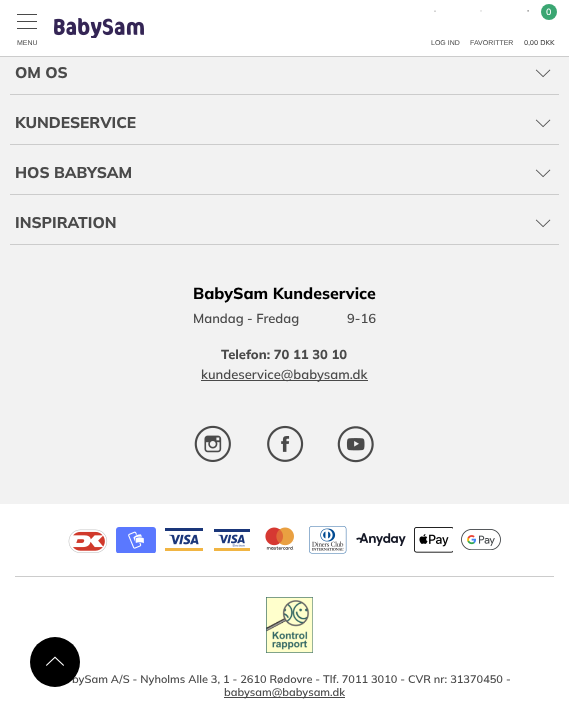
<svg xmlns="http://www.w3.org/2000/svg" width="569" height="717">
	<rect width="100%" height="100%" fill="#FFFFFF" />
	<rect x="0" y="56" width="569" height="1" fill="#CCCCCC" />
	<image x="54" y="18" width="90" height="20" href="assets/img1.png" />
	<image x="434" y="10" width="2" height="2" href="assets/img2.png" />
	<text x="431" y="45" font-family="Liberation Sans" font-size="7" fill="#4A4A4A">LOG IND</text>
	<image x="480" y="10" width="2" height="2" href="assets/img3.png" />
	<text x="470" y="45" font-family="Liberation Sans" font-size="7" fill="#4A4A4A">FAVORITTER</text>
	<image x="527" y="10" width="2" height="2" href="assets/img4.png" />
	<circle cx="549" cy="12" r="8" fill="#3AA672" />
	<text x="546" y="15" font-family="Mulish" font-size="9" font-weight="600" fill="#FFFFFF">0</text>
	<text x="524" y="45" font-family="Mulish" font-size="7" font-weight="600" fill="#4A4A4A">0,00 DKK</text>
	<rect x="17" y="14" width="20" height="1" fill="#4A4A4A" />
	<rect x="17" y="21" width="20" height="1" fill="#4A4A4A" />
	<rect x="17" y="28" width="20" height="1" fill="#4A4A4A" />
	<text x="17" y="45" font-family="Liberation Sans" font-size="7" fill="#4A4A4A">MENU</text>
	<rect x="0" y="57" width="569" height="447" fill="#F2F2F2" />
	<rect x="10" y="94" width="549" height="1" fill="#CCCCCC" />
	<text x="15" y="78" font-family="Mulish" font-size="15.5" font-weight="800" fill="#4A4A4A">OM OS</text>
	<image x="535" y="69" width="16" height="9" href="assets/img5.png" />
	<rect x="10" y="144" width="549" height="1" fill="#CCCCCC" />
	<text x="15" y="128" font-family="Mulish" font-size="15.5" font-weight="800" fill="#4A4A4A">KUNDESERVICE</text>
	<image x="535" y="119" width="16" height="9" href="assets/img5.png" />
	<rect x="10" y="194" width="549" height="1" fill="#CCCCCC" />
	<text x="15" y="178" font-family="Mulish" font-size="15.5" font-weight="800" fill="#4A4A4A">HOS BABYSAM</text>
	<image x="535" y="169" width="16" height="9" href="assets/img5.png" />
	<rect x="10" y="244" width="549" height="1" fill="#CCCCCC" />
	<text x="15" y="228" font-family="Mulish" font-size="15.5" font-weight="800" fill="#4A4A4A">INSPIRATION</text>
	<image x="535" y="219" width="16" height="9" href="assets/img5.png" />
	<text x="193" y="299" font-family="Mulish" font-size="16" font-weight="800" fill="#000000">BabySam Kundeservice</text>
	<g font-family="Mulish" font-size="13" font-weight="600" fill="#4A4A4A">
		<text x="193" y="323">Mandag - Fredag</text>
		<text x="347" y="323">9-16</text>
	</g>
	<text x="221" y="359" font-family="Mulish" font-size="13" font-weight="800" fill="#4A4A4A">Telefon: 70 11 30 10</text>
	<rect x="201" y="380" width="167" height="1" fill="#4A4A4A" />
	<text x="201" y="379" font-family="Mulish" font-size="13" font-weight="600" fill="#4A4A4A">kundeservice@babysam.dk</text>
	<image x="194" y="425" width="37" height="37" href="assets/img6.png" />
	<image x="267" y="425" width="37" height="37" href="assets/img7.png" />
	<image x="337" y="426" width="37" height="37" href="assets/img8.png" />
	<rect x="15" y="576" width="539" height="1" fill="#CCCCCC" />
	<image x="68" y="529" width="40" height="24" href="assets/img9.png" />
	<image x="116" y="527" width="40" height="26" href="assets/img10.png" />
	<image x="165" y="528" width="38" height="23" href="assets/img11.png" />
	<image x="214" y="529" width="36" height="22" href="assets/img12.png" />
	<image x="265" y="527" width="29" height="23" href="assets/img13.png" />
	<image x="309" y="526" width="38" height="28" href="assets/img14.png" />
	<image x="356" y="533" width="50" height="13" href="assets/img15.png" />
	<image x="414" y="527" width="39" height="26" href="assets/img16.png" />
	<image x="461" y="529" width="40" height="21" href="assets/img17.png" />
	<image x="266" y="597" width="47" height="56" href="assets/img18.png" />
	<text x="72" y="683" font-family="Mulish" font-size="11" font-weight="600" fill="#4A4A4A">bySam A/S - Nyholms Alle 3, 1 - 2610 Rødovre - Tlf. 7011 3010 - CVR nr: 31370450 -</text>
	<rect x="224" y="697" width="121" height="1" fill="#4A4A4A" />
	<text x="224" y="696" font-family="Mulish" font-size="11" font-weight="600" fill="#4A4A4A">babysam@babysam.dk</text>
	<circle cx="55" cy="662" r="25" fill="#000000" />
	<path d="M63.5 666L55 658L46.5 666L46 665L55 656.5L64 665" fill="#FFFFFF" />
</svg>
